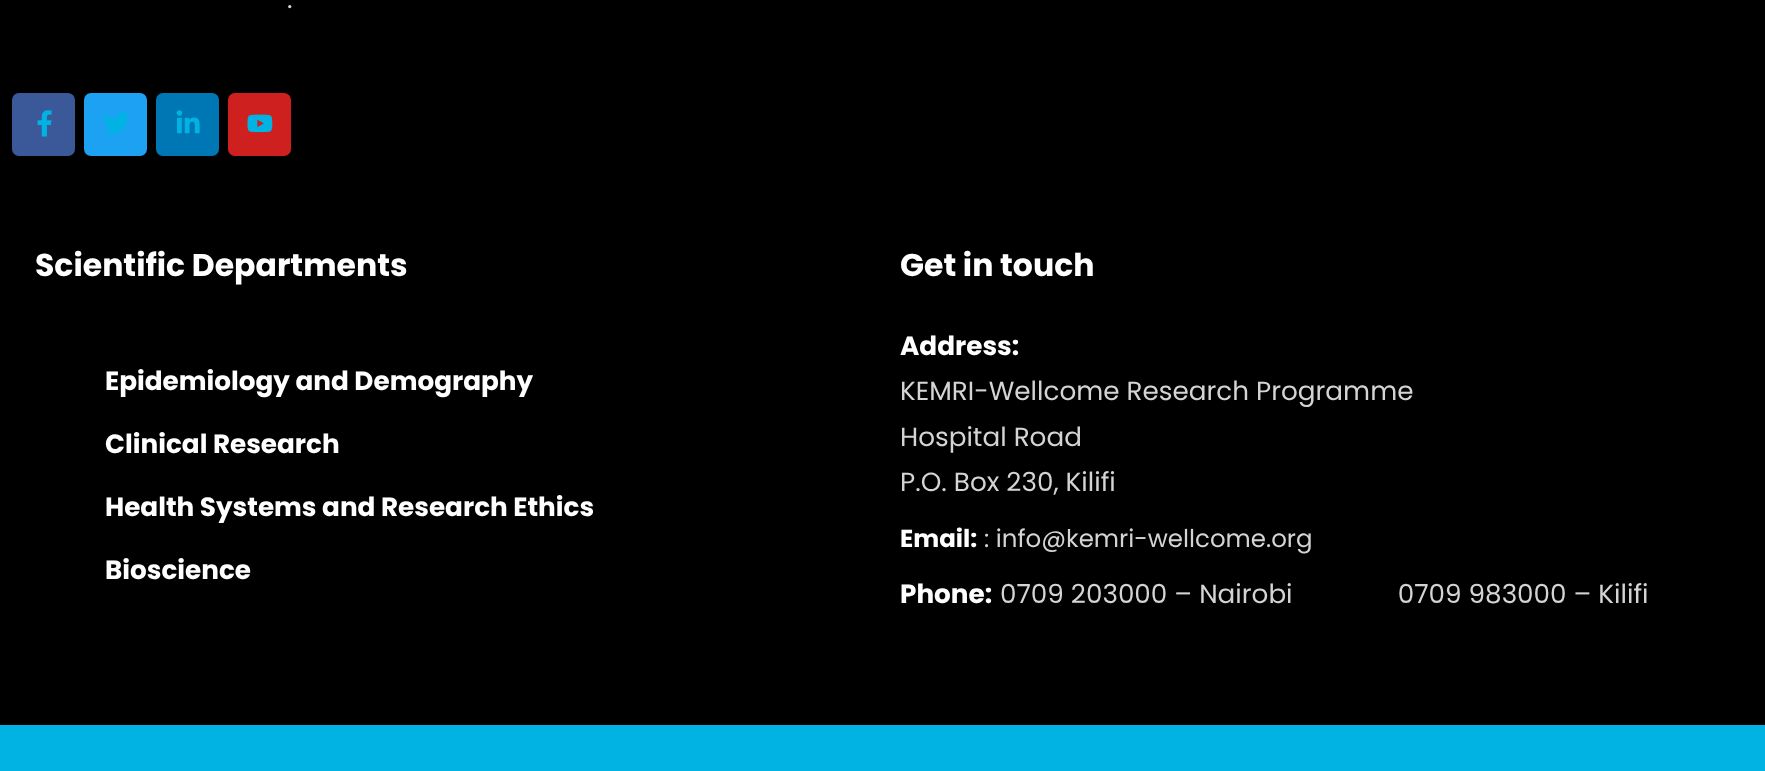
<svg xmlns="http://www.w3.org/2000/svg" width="1765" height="771">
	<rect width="100%" height="100%" fill="#000000" />
	<text x="287" y="8" font-family="Poppins" font-size="26.25" fill="#D4D4D4">.</text>
	<rect x="12" y="93" width="63" height="63" rx="7" fill="#3B5998" />
	<image x="37" y="110" width="15" height="27" href="assets/img1.png" />
	<rect x="84" y="93" width="63" height="63" rx="7" fill="#1DA1F2" />
	<image x="104" y="112" width="25" height="22" href="assets/img2.png" />
	<rect x="156" y="93" width="63" height="63" rx="7" fill="#0077B5" />
	<image x="176" y="110" width="24" height="24" href="assets/img3.png" />
	<rect x="228" y="93" width="63" height="63" rx="7" fill="#CD201F" />
	<image x="247" y="114" width="26" height="19" href="assets/img4.png" />
	<text x="35" y="276" font-family="Poppins" font-size="31.5" font-weight="700" fill="#FFFFFF">Scientific Departments</text>
	<g font-family="Poppins" font-size="26.25" font-weight="700" fill="#FFFFFF">
		<text x="105" y="390">Epidemiology and Demography</text>
		<text x="105" y="453">Clinical Research</text>
		<text x="105" y="516">Health Systems and Research Ethics</text>
		<text x="105" y="579">Bioscience</text>
	</g>
	<text x="900" y="276" font-family="Poppins" font-size="31.5" font-weight="700" fill="#FFFFFF">Get in touch</text>
	<text x="900" y="355" font-family="Poppins" font-size="26.25" font-weight="700" fill="#FFFFFF">Address:</text>
	<g font-family="Poppins" font-size="26.25" fill="#D4D4D4">
		<text x="900" y="400">KEMRI-Wellcome Research Programme</text>
		<text x="900" y="446">Hospital Road</text>
		<text x="900" y="491">P.O. Box 230, Kilifi</text>
	</g>
	<text x="900" y="547" font-family="Poppins" font-size="24.5" font-weight="700" fill="#FFFFFF">Email:</text>
	<text x="984" y="547" font-family="Poppins" font-size="24.5" fill="#D4D4D4">: info@kemri-wellcome.org</text>
	<text x="900" y="603" font-family="Poppins" font-size="26.25" font-weight="700" fill="#FFFFFF">Phone:</text>
	<text x="1000" y="603" font-family="Poppins" font-size="26.25" fill="#D4D4D4" xml:space="preserve">0709 203000 – Nairobi               0709 983000 – Kilifi</text>
	<rect x="0" y="725" width="1765" height="46" fill="#00B3E3" />
</svg>
